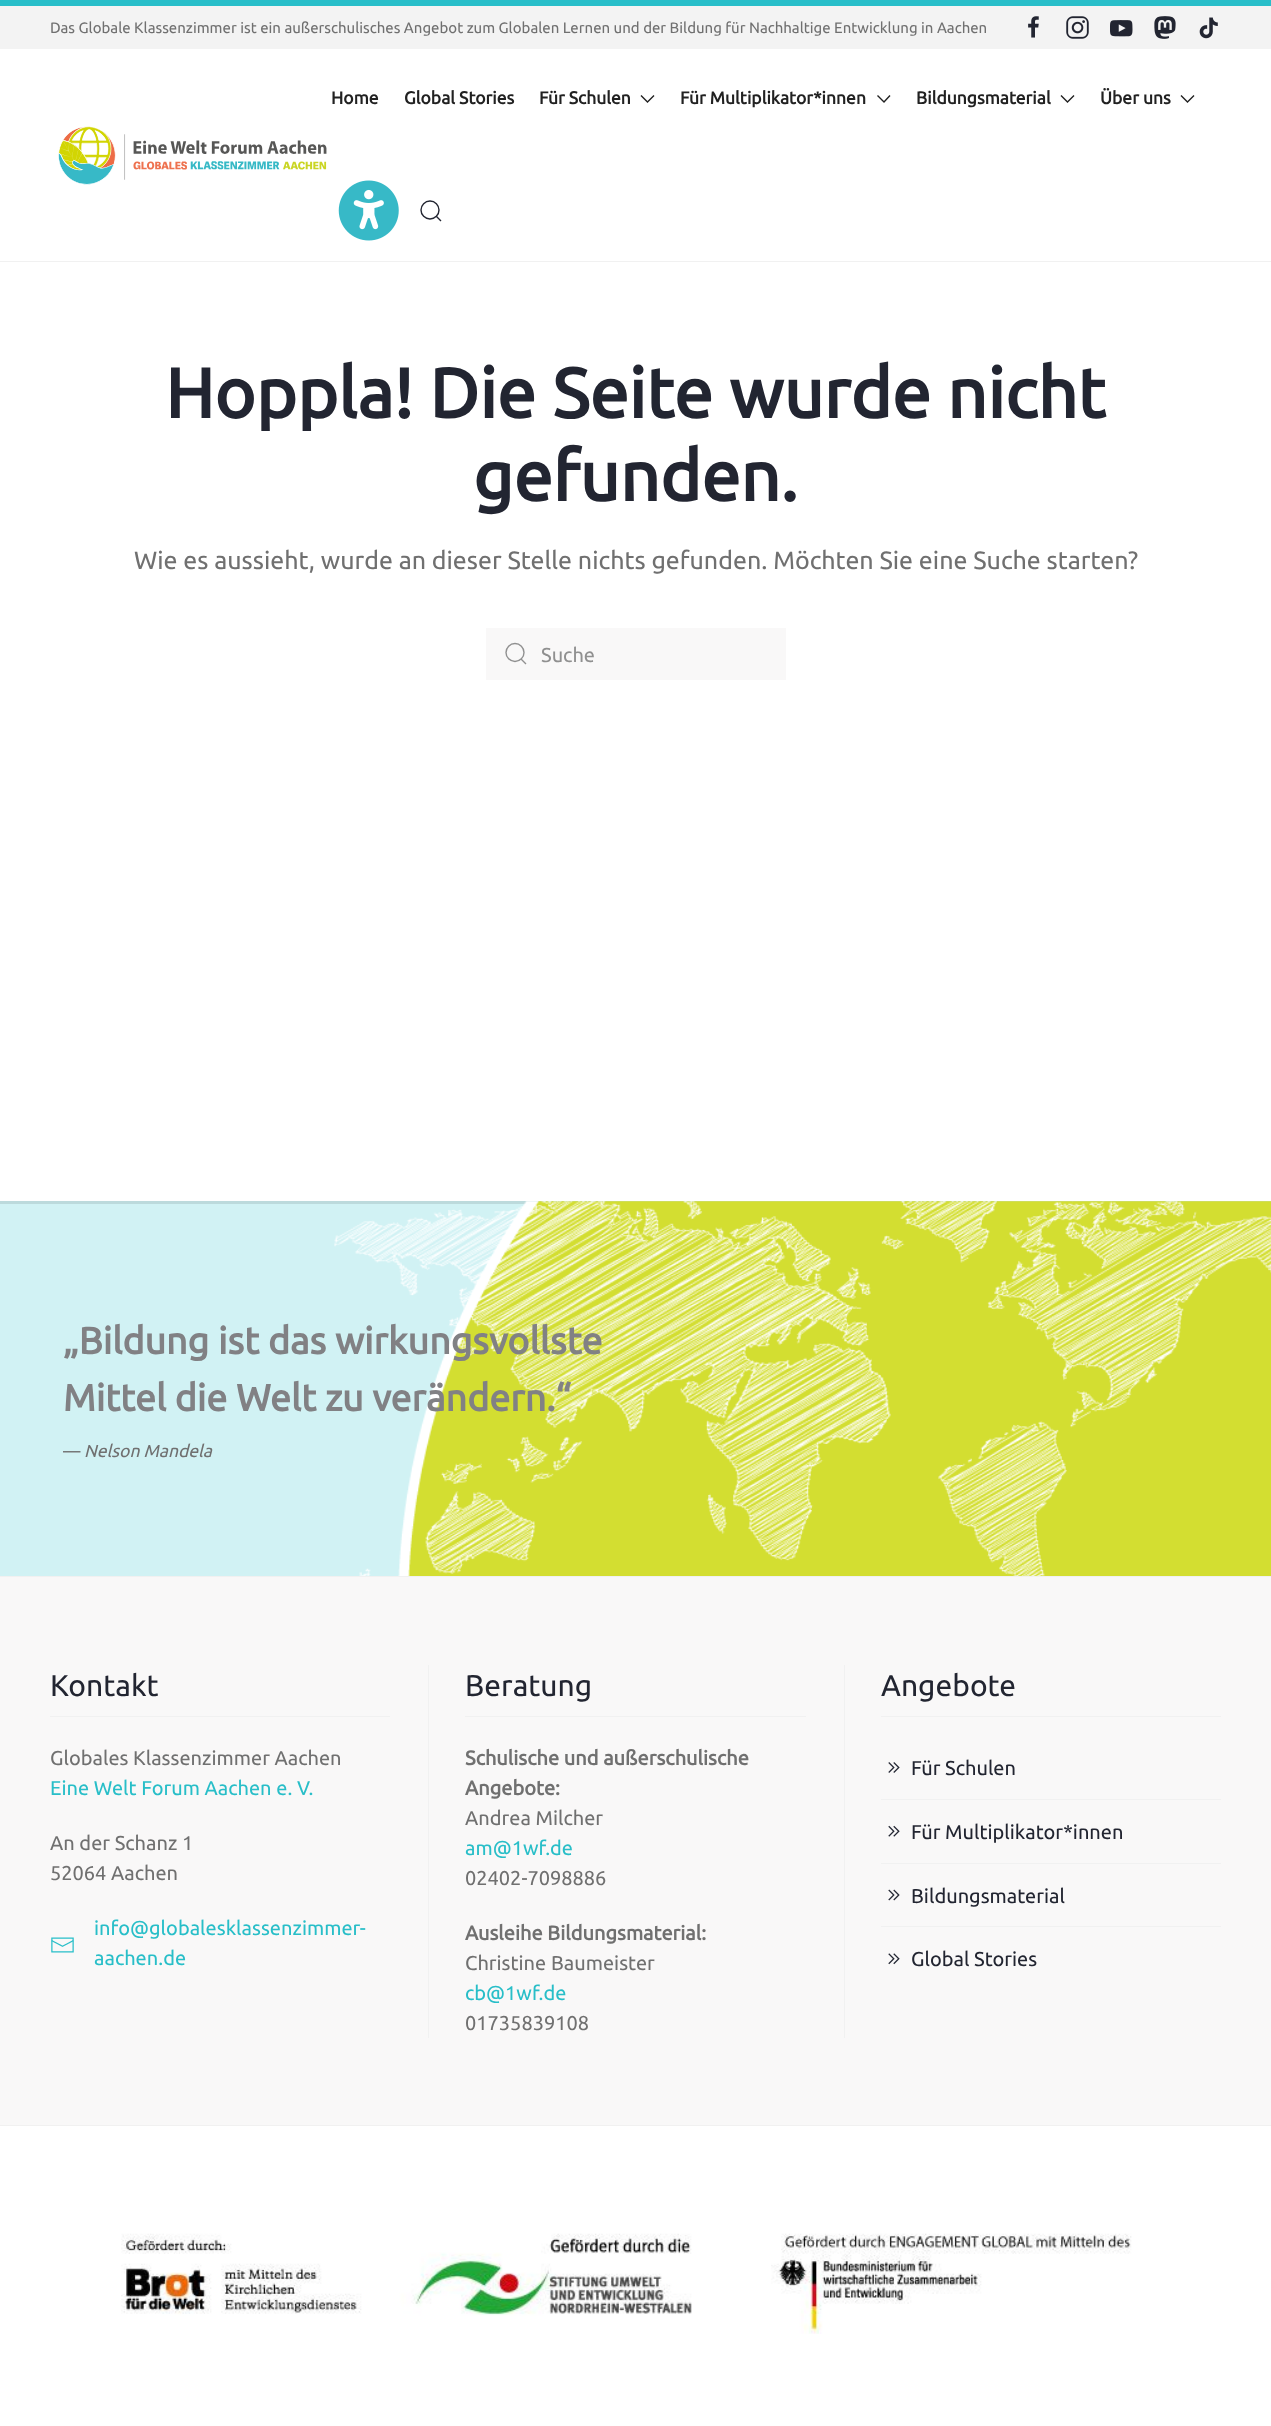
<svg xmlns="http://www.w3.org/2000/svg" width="1271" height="2426">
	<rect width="100%" height="100%" fill="#FFFFFF" />
	<rect x="0" y="6" width="1271" height="43" fill="#F3F3F3" />
	<rect x="0" y="0" width="1271" height="6" fill="#28BEC9" />
	<text x="50" y="33" font-family="Ubuntu" font-size="15" fill="#707070">Das Globale Klassenzimmer ist ein außerschulisches Angebot zum Globalen Lernen und der Bildung für Nachhaltige Entwicklung in Aachen</text>
	<image x="1028" y="16" width="11" height="22" href="assets/img1.png" />
	<image x="1066" y="16" width="23" height="23" href="assets/img2.png" />
	<image x="1110" y="20" width="23" height="17" href="assets/img3.png" />
	<image x="1154" y="16" width="22" height="23" href="assets/img4.png" />
	<image x="1199" y="17" width="19" height="22" href="assets/img5.png" />
	<rect x="0" y="261" width="1271" height="1" fill="#F1F1F1" />
	<g font-family="Ubuntu" font-size="17.5" font-weight="700" fill="#212121">
		<text x="331" y="104">Home</text>
		<text x="404" y="104">Global Stories</text>
		<text x="539" y="104">Für Schulen</text>
	</g>
	<path d="M641 95.5L647.5 102L654 95.5" fill="none" stroke="#212121" stroke-width="1.4" />
	<text x="680" y="104" font-family="Ubuntu" font-size="17.5" font-weight="700" fill="#212121">Für Multiplikator*innen</text>
	<path d="M877.5 95.5L884 102L890 95.5" fill="none" stroke="#212121" stroke-width="1.4" />
	<text x="916" y="104" font-family="Ubuntu" font-size="17.5" font-weight="700" fill="#212121">Bildungsmaterial</text>
	<path d="M1061 95.5L1067.5 102L1074 95.5" fill="none" stroke="#212121" stroke-width="1.4" />
	<text x="1100" y="104" font-family="Ubuntu" font-size="17.5" font-weight="700" fill="#212121">Über uns</text>
	<path d="M1181 95.5L1187.5 102L1194 95.5" fill="none" stroke="#212121" stroke-width="1.4" />
	<image x="338" y="180" width="61" height="61" href="assets/img6.png" />
	<circle cx="430" cy="210" r="9" fill="none" stroke="#222531" stroke-width="1.4" />
	<path d="M436 216L441 221Z" fill="none" stroke="#222531" stroke-width="1.4" />
	<image x="58" y="126" width="269" height="59" href="assets/img7.png" />
	<g font-family="Ubuntu" font-size="70" font-weight="700" fill="#222531">
		<text x="165" y="418">Hoppla! Die Seite wurde nicht</text>
		<text x="473" y="501">gefunden.</text>
	</g>
	<text x="134" y="569" font-family="Ubuntu" font-size="25" fill="#707070">Wie es aussieht, wurde an dieser Stelle nichts gefunden. Möchten Sie eine Suche starten?</text>
	<rect x="486" y="628" width="300" height="52" fill="#F9F8F8" />
	<circle cx="515" cy="652.5" r="9" fill="none" stroke="#909090" stroke-width="1.4" />
	<path d="M521 659L526 664Z" fill="none" stroke="#909090" stroke-width="1.4" />
	<text x="541" y="662" font-family="Ubuntu" font-size="20" fill="#909090">Suche</text>
	<rect x="0" y="1204" width="525" height="372" fill="#D1F2F4" />
	<rect x="0" y="1201" width="1271" height="3" fill="#BCDADC" />
	<image x="334" y="1201" width="937" height="375" href="assets/img8.png" />
	<g font-family="Ubuntu" font-size="37.5" font-weight="700" fill="#818184">
		<text x="63" y="1354">„Bildung ist das wirkungsvollste</text>
		<text x="63" y="1411">Mittel die Welt zu verändern.“</text>
	</g>
	<text x="63" y="1457" font-family="Ubuntu" font-size="17.5" fill="#707070">—</text>
	<text x="84" y="1457" font-family="Ubuntu" font-size="17.5" font-style="italic" fill="#707070">Nelson Mandela</text>
	<rect x="0" y="1577" width="1271" height="548" fill="#BDB2B2" fill-opacity="0.09" />
	<rect x="0" y="1576" width="1271" height="1" fill="#F1F1F1" />
	<rect x="50" y="1716" width="340" height="1" fill="#F1F1F1" />
	<text x="50" y="1696" font-family="Ubuntu" font-size="30" fill="#222531">Kontakt</text>
	<text x="50" y="1765" font-family="Ubuntu" font-size="20" fill="#707070">Globales Klassenzimmer Aachen</text>
	<text x="50" y="1795" font-family="Ubuntu" font-size="20" fill="#28BEC8">Eine Welt Forum Aachen e. V.</text>
	<g font-family="Ubuntu" font-size="20" fill="#707070">
		<text x="50" y="1850">An der Schanz 1</text>
		<text x="50" y="1880">52064 Aachen</text>
	</g>
	<image x="51" y="1937" width="23" height="16" href="assets/img9.png" />
	<g font-family="Ubuntu" font-size="20" fill="#28BEC8">
		<text x="94" y="1935">info@globalesklassenzimmer-</text>
		<text x="94" y="1965">aachen.de</text>
	</g>
	<rect x="428" y="1665" width="1" height="373" fill="#F1F1F1" />
	<rect x="465" y="1716" width="341" height="1" fill="#F1F1F1" />
	<text x="465" y="1696" font-family="Ubuntu" font-size="30" fill="#222531">Beratung</text>
	<g font-family="Ubuntu" font-size="20" font-weight="700" fill="#707070">
		<text x="465" y="1765">Schulische und außerschulische</text>
		<text x="465" y="1795">Angebote:</text>
	</g>
	<text x="465" y="1825" font-family="Ubuntu" font-size="20" fill="#707070">Andrea Milcher</text>
	<text x="465" y="1855" font-family="Ubuntu" font-size="20" fill="#28BEC8">am@1wf.de</text>
	<text x="465" y="1885" font-family="Ubuntu" font-size="20" fill="#707070">02402-7098886</text>
	<text x="465" y="1940" font-family="Ubuntu" font-size="20" font-weight="700" fill="#707070">Ausleihe Bildungsmaterial:</text>
	<text x="465" y="1970" font-family="Ubuntu" font-size="20" fill="#707070">Christine Baumeister</text>
	<text x="465" y="2000" font-family="Ubuntu" font-size="20" fill="#28BEC8">cb@1wf.de</text>
	<text x="465" y="2030" font-family="Ubuntu" font-size="20" fill="#707070">01735839108</text>
	<rect x="844" y="1665" width="1" height="373" fill="#F1F1F1" />
	<rect x="881" y="1716" width="340" height="1" fill="#F1F1F1" />
	<text x="881" y="1696" font-family="Ubuntu" font-size="30" fill="#222531">Angebote</text>
	<image x="888" y="1762" width="12" height="11" href="assets/img10.png" />
	<text x="911" y="1775" font-family="Ubuntu" font-size="20" fill="#222531">Für Schulen</text>
	<rect x="881" y="1799" width="340" height="1" fill="#F1F1F1" />
	<image x="888" y="1825" width="12" height="12" href="assets/img11.png" />
	<text x="911" y="1839" font-family="Ubuntu" font-size="20" fill="#222531">Für Multiplikator*innen</text>
	<rect x="881" y="1863" width="340" height="1" fill="#F1F1F1" />
	<image x="888" y="1889" width="12" height="12" href="assets/img12.png" />
	<text x="911" y="1903" font-family="Ubuntu" font-size="20" fill="#222531">Bildungsmaterial</text>
	<rect x="881" y="1926" width="340" height="1" fill="#F1F1F1" />
	<image x="888" y="1953" width="12" height="12" href="assets/img13.png" />
	<text x="911" y="1966" font-family="Ubuntu" font-size="20" fill="#222531">Global Stories</text>
	<rect x="0" y="2125" width="1271" height="1" fill="#F1F1F1" />
	<image x="121" y="2233" width="1011" height="101" href="assets/img14.png" />
</svg>
